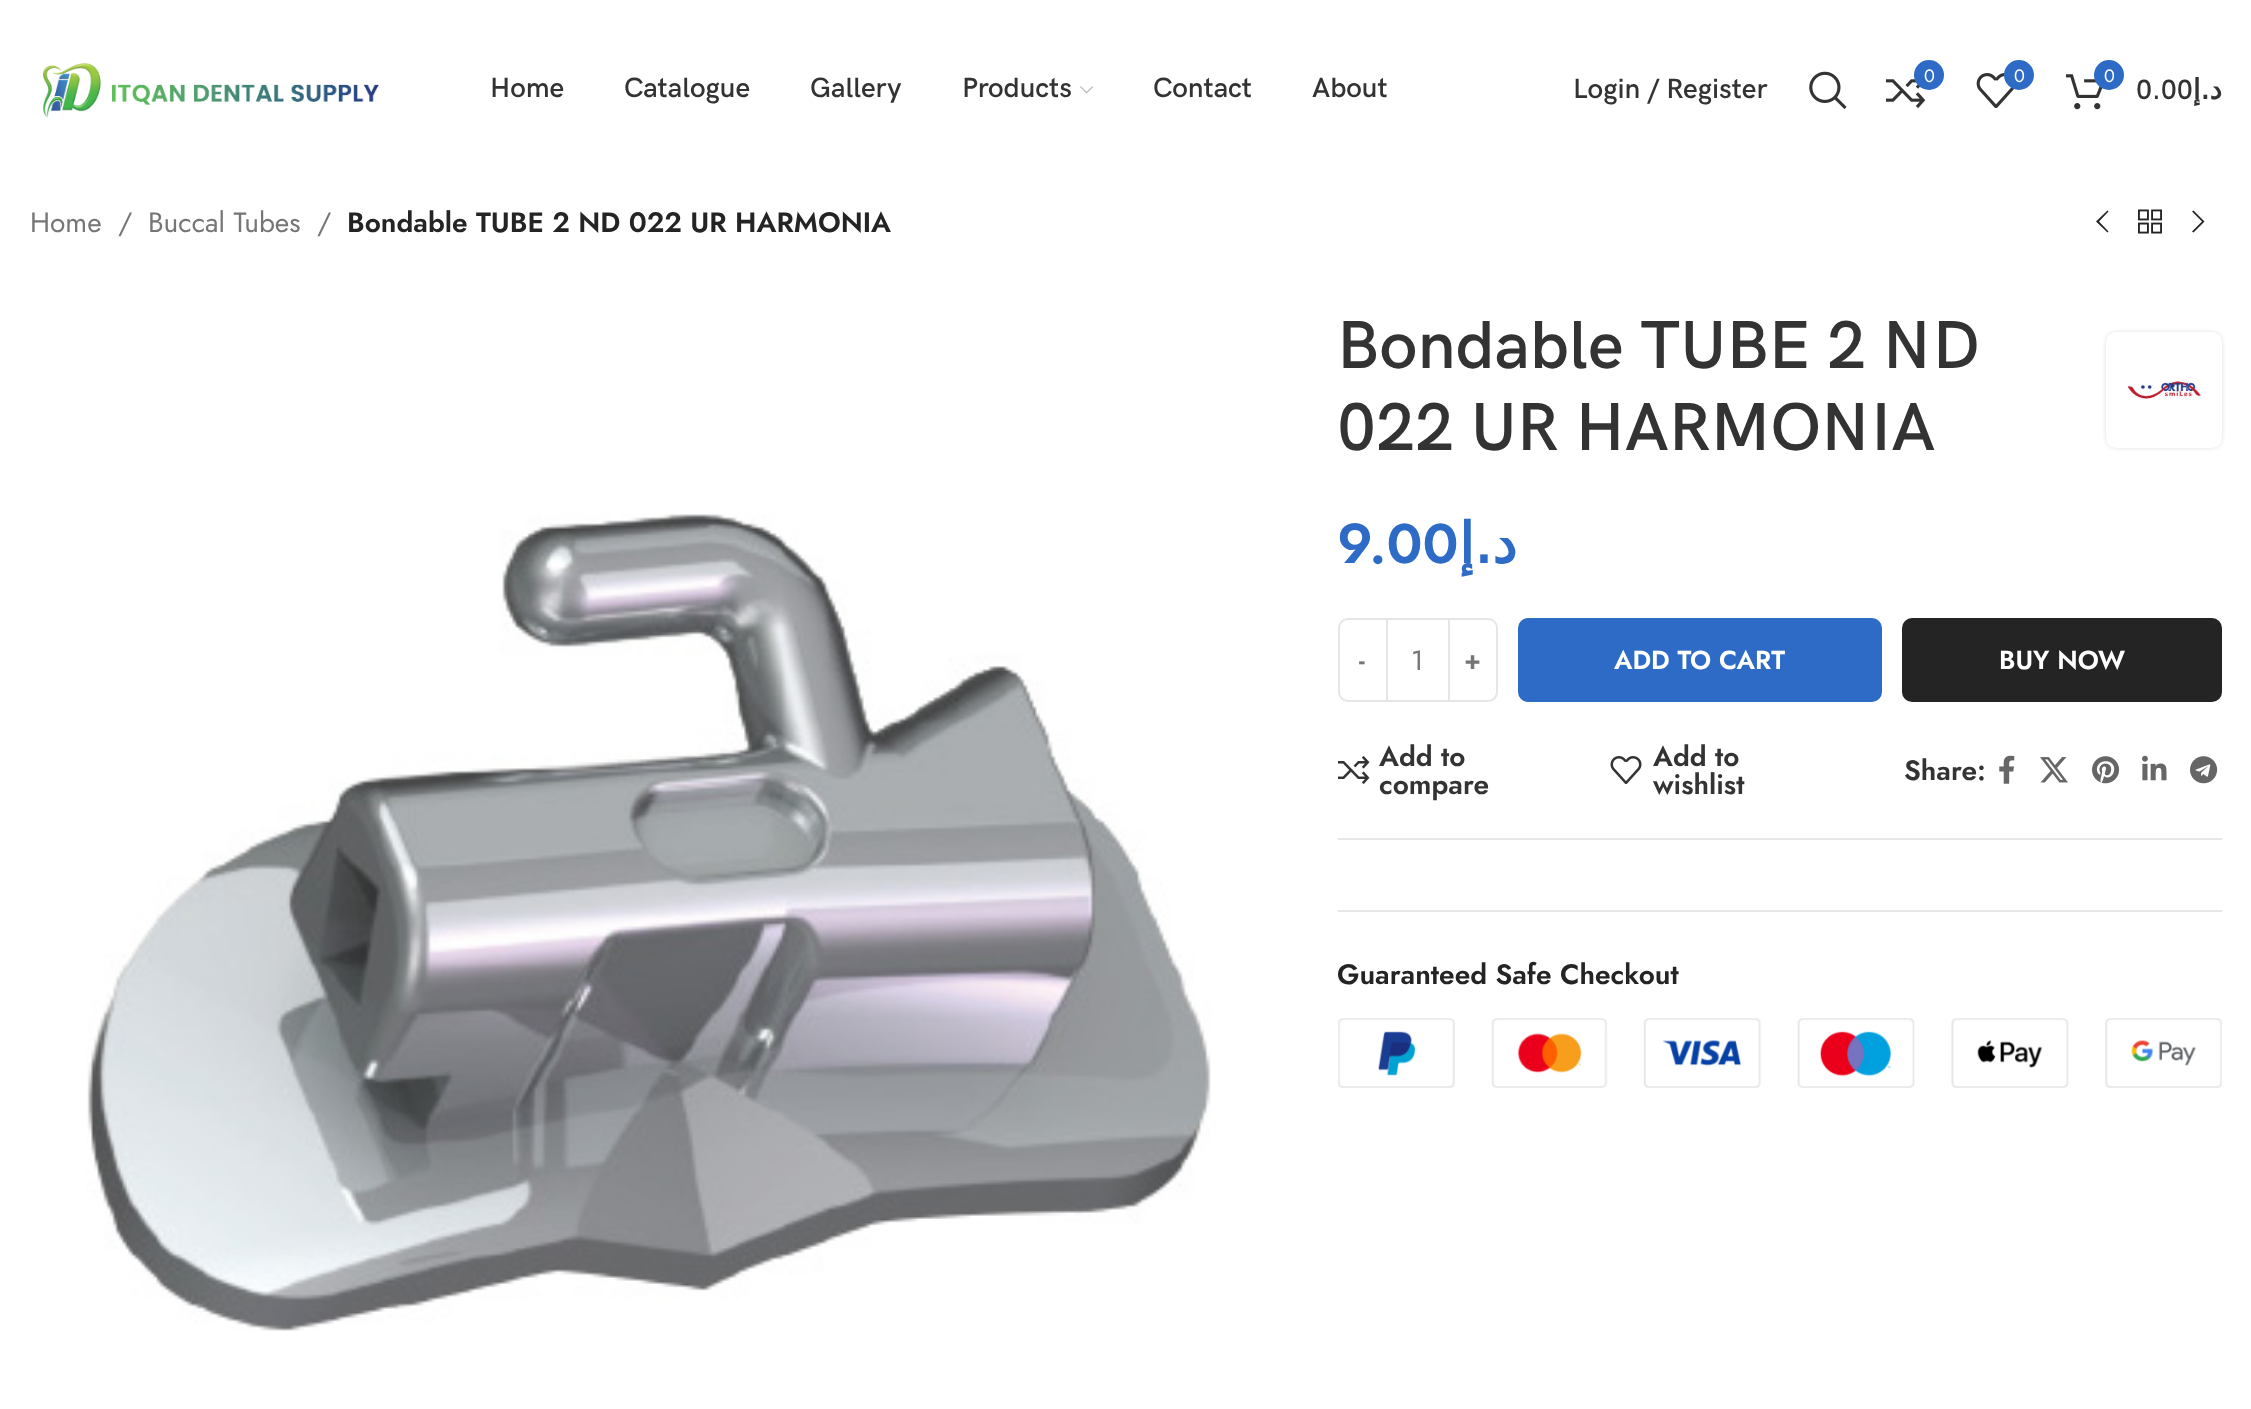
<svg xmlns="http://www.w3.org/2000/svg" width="2251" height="1409">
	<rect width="100%" height="100%" fill="#FFFFFF" />
	<image x="43" y="63" width="336" height="55" href="assets/img1.png" />
	<g font-family="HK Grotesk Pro" font-size="28" font-weight="600" fill="#333333">
		<text x="490" y="97">Home</text>
		<text x="624" y="97">Catalogue</text>
		<text x="810" y="97">Gallery</text>
		<text x="962" y="97">Products</text>
	</g>
	<image x="1080" y="86" width="13" height="8" href="assets/img2.png" />
	<g font-family="HK Grotesk Pro" font-size="28" font-weight="600" fill="#333333">
		<text x="1153" y="97">Contact</text>
		<text x="1312" y="97">About</text>
		<text x="1573" y="98">Login / Register</text>
	</g>
	<image x="1809" y="71" width="38" height="38" href="assets/img3.png" />
	<image x="1886" y="79" width="40" height="29" href="assets/img4.png" />
	<circle cx="1929" cy="75" r="15" fill="#2E6BC6" />
	<text x="1924" y="82" font-family="Jost" font-size="18" fill="#FFFFFF">0</text>
	<image x="1976" y="73" width="38" height="35" href="assets/img5.png" />
	<circle cx="2019" cy="75" r="15" fill="#2E6BC6" />
	<text x="2014" y="82" font-family="Jost" font-size="18" fill="#FFFFFF">0</text>
	<image x="2066" y="74" width="37" height="36" href="assets/img6.png" />
	<circle cx="2109" cy="75" r="15" fill="#2E6BC6" />
	<text x="2104" y="82" font-family="Jost" font-size="18" fill="#FFFFFF">0</text>
	<text x="2136" y="99" font-family="HK Grotesk Pro" font-size="28" font-weight="600" fill="#333333">0.00</text>
	<text x="2222" y="99" font-family="DejaVu Sans" font-size="28" font-weight="700" direction="rtl" fill="#333333">د.إ</text>
	<g font-family="Jost" font-size="28" fill="#767676">
		<text x="30" y="232">Home</text>
		<text x="118" y="232">/</text>
		<text x="148" y="232">Buccal Tubes</text>
		<text x="317" y="232">/</text>
	</g>
	<text x="347" y="232" font-family="Jost" font-size="28" font-weight="600" fill="#242424">Bondable TUBE 2 ND 022 UR HARMONIA</text>
	<path d="M2108.5 211.5L2107.5 210.5L2096 221.5L2107.5 232.5L2108.5 231.5L2099 221.5Z" fill="#242424" />
	<image x="2138" y="209" width="24" height="25" href="assets/img7.png" />
	<path d="M2192 211.5L2202 221.5L2192 231.5L2193.5 232.5L2204.5 221.5L2193.5 210.5Z" fill="#242424" />
	<image x="87" y="514" width="1124" height="817" href="assets/img8.png" />
	<g font-family="HK Grotesk Pro" font-size="68" font-weight="600" fill="#333333">
		<text x="1337" y="368">Bondable TUBE 2 ND</text>
		<text x="1337" y="450">022 UR HARMONIA</text>
	</g>
	<rect x="2106" y="332" width="116" height="116" rx="10" fill="#000000" fill-opacity="0.12" filter="blur(2px)" />
	<rect x="2106" y="332" width="116" height="116" rx="10" fill="#FFFFFF" />
	<image x="2127" y="381" width="74" height="18" href="assets/img9.png" />
	<text x="1337" y="563" font-family="Jost" font-size="56" font-weight="600" fill="#2E6BC6">9.00</text>
	<text x="1517" y="563" font-family="DejaVu Sans" font-size="56" font-weight="700" direction="rtl" fill="#2E6BC6">د.إ</text>
	<path d="M1348 619H1387V701H1348C1343 701 1339 697 1339 692V628C1339 623 1343 619 1348 619Z" fill="none" stroke="#E6E6E6" stroke-width="2" />
	<text x="1359" y="669" font-family="Jost" font-size="26" font-weight="600" fill="#767676">-</text>
	<rect x="1388" y="618" width="60" height="2" fill="#E6E6E6" />
	<rect x="1388" y="700" width="60" height="2" fill="#E6E6E6" />
	<text x="1411" y="670" font-family="Jost" font-size="28" fill="#767676">1</text>
	<path d="M1449 619H1488C1493 619 1497 623 1497 628V692C1497 697 1493 701 1488 701H1449Z" fill="none" stroke="#E6E6E6" stroke-width="2" />
	<text x="1464" y="669" font-family="Jost" font-size="26" font-weight="600" fill="#767676">+</text>
	<rect x="1518" y="618" width="364" height="84" rx="10" fill="#2E6BC6" />
	<text x="1614" y="669" font-family="Jost" font-size="26" font-weight="600" fill="#FFFFFF">ADD TO CART</text>
	<rect x="1902" y="618" width="320" height="84" rx="10" fill="#242424" />
	<text x="1999" y="669" font-family="Jost" font-size="26" font-weight="600" fill="#FFFFFF">BUY NOW</text>
	<image x="1338" y="756" width="32" height="28" href="assets/img10.png" />
	<g font-family="Jost" font-size="28" font-weight="600" fill="#333333">
		<text x="1379" y="766">Add to</text>
		<text x="1379" y="794">compare</text>
	</g>
	<image x="1610" y="756" width="32" height="28" href="assets/img11.png" />
	<g font-family="Jost" font-size="28" font-weight="600" fill="#333333">
		<text x="1653" y="766">Add to</text>
		<text x="1653" y="794">wishlist</text>
		<text x="1904" y="780">Share:</text>
	</g>
	<image x="1999" y="755" width="16" height="29" href="assets/img12.png" />
	<image x="2040" y="757" width="28" height="26" href="assets/img13.png" />
	<image x="2092" y="756" width="28" height="28" href="assets/img14.png" />
	<image x="2142" y="755" width="25" height="26" href="assets/img15.png" />
	<image x="2190" y="756" width="28" height="28" href="assets/img16.png" />
	<rect x="1338" y="838" width="884" height="2" fill="#E7E7E7" />
	<rect x="1338" y="910" width="884" height="2" fill="#E7E7E7" />
	<text x="1337" y="984" font-family="Jost" font-size="28" font-weight="600" fill="#242424">Guaranteed Safe Checkout</text>
	<image x="1338" y="1018" width="884" height="70" href="assets/img17.png" />
</svg>
